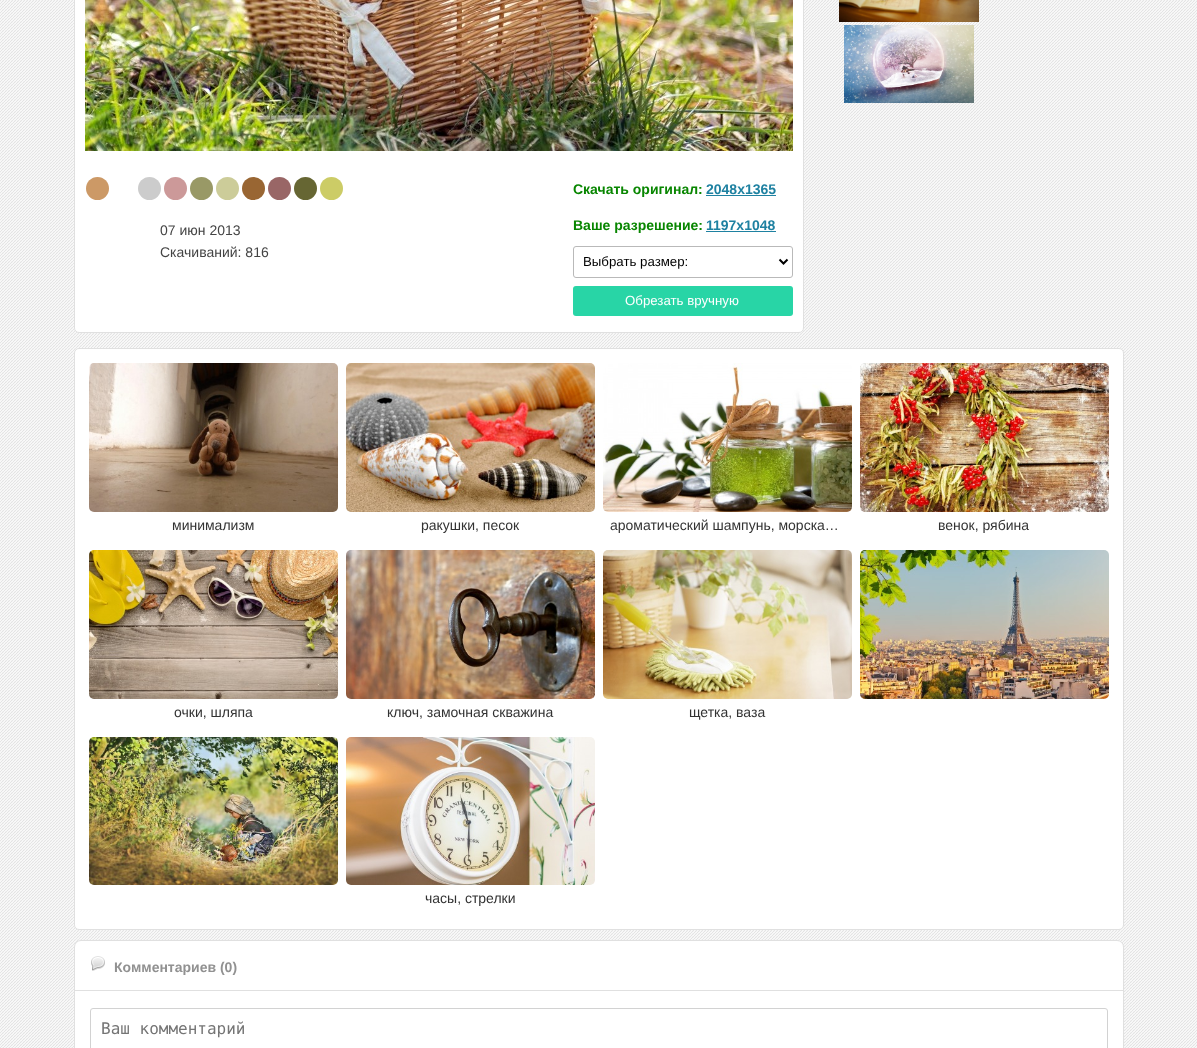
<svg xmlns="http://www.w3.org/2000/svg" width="1197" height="1048">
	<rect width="100%" height="100%" fill="#FFFFFF" />
	<image x="0" y="0" width="1197" height="1048" href="assets/img1.png" />
	<image x="839" y="0" width="140" height="22" href="assets/img2.png" />
	<image x="844" y="25" width="130" height="78" href="assets/img3.png" />
	<rect x="74.5" y="-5.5" width="729" height="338" rx="4.5" fill="#FFFFFF" stroke="#E0E0E0" />
	<image x="85" y="0" width="708" height="151" href="assets/img4.png" />
	<circle cx="97.5" cy="188.5" r="11.5" fill="#CC9966" />
	<circle cx="149.5" cy="188.5" r="11.5" fill="#CCCCCC" />
	<circle cx="175.5" cy="188.5" r="11.5" fill="#CC9999" />
	<circle cx="201.5" cy="188.5" r="11.5" fill="#999966" />
	<circle cx="227.5" cy="188.5" r="11.5" fill="#CCCC99" />
	<circle cx="253.5" cy="188.5" r="11.5" fill="#996633" />
	<circle cx="279.5" cy="188.5" r="11.5" fill="#996666" />
	<circle cx="305.5" cy="188.5" r="11.5" fill="#666633" />
	<circle cx="331.5" cy="188.5" r="11.5" fill="#CCCC66" />
	<g font-family="Liberation Sans" font-size="14" fill="#444444">
		<text x="160" y="235">07 июн 2013</text>
		<text x="160" y="257">Скачиваний: 816</text>
	</g>
	<text x="573" y="194" font-family="Liberation Sans" font-size="14" font-weight="700" fill="#088600">Скачать оригинал:</text>
	<text x="706" y="194" font-family="Liberation Sans" font-size="14" font-weight="700" fill="#1E81A1">2048x1365</text>
	<rect x="706" y="195" width="70" height="1" fill="#1E81A1" />
	<text x="573" y="230" font-family="Liberation Sans" font-size="14" font-weight="700" fill="#088600">Ваше разрешение:</text>
	<text x="706" y="230" font-family="Liberation Sans" font-size="14" font-weight="700" fill="#1E81A1">1197x1048</text>
	<rect x="706" y="231" width="70" height="1" fill="#1E81A1" />
	<rect x="573.5" y="246.5" width="219" height="31" rx="2.5" fill="none" stroke="#B9B9B9" />
	<path d="M779.5 259.5L783.5 263.5L787.5 259.5" fill="none" stroke="#000000" stroke-width="2" />
	<text x="583" y="266" font-family="Liberation Sans" font-size="13.25" fill="#000000">Выбрать размер:</text>
	<rect x="573" y="286" width="220" height="30" rx="3" fill="#28D5A6" />
	<text x="625" y="305" font-family="Liberation Sans" font-size="13.25" fill="#FFFFFF">Обрезать вручную</text>
	<rect x="74.5" y="348.5" width="1049" height="581" rx="4.5" fill="#FFFFFF" stroke="#E0E0E0" />
	<image x="89" y="363" width="249" height="149" href="assets/img5.png" />
	<text x="172" y="530" font-family="Liberation Sans" font-size="14" fill="#333333">минимализм</text>
	<image x="346" y="363" width="249" height="149" href="assets/img6.png" />
	<text x="421" y="530" font-family="Liberation Sans" font-size="14" fill="#333333">ракушки, песок</text>
	<image x="603" y="363" width="249" height="149" href="assets/img7.png" />
	<text x="610" y="530" font-family="Liberation Sans" font-size="14" fill="#333333">ароматический шампунь, морска…</text>
	<image x="860" y="363" width="249" height="149" href="assets/img8.png" />
	<text x="938" y="530" font-family="Liberation Sans" font-size="14" fill="#333333">венок, рябина</text>
	<image x="860" y="550" width="249" height="149" href="assets/img9.png" />
	<image x="89" y="550" width="249" height="149" href="assets/img10.png" />
	<text x="174" y="717" font-family="Liberation Sans" font-size="14" fill="#333333">очки, шляпа</text>
	<image x="346" y="550" width="249" height="149" href="assets/img11.png" />
	<text x="387" y="717" font-family="Liberation Sans" font-size="14" fill="#333333">ключ, замочная скважина</text>
	<image x="603" y="550" width="249" height="149" href="assets/img12.png" />
	<text x="689" y="717" font-family="Liberation Sans" font-size="14" fill="#333333">щетка, ваза</text>
	<image x="89" y="737" width="249" height="148" href="assets/img13.png" />
	<image x="346" y="737" width="249" height="148" href="assets/img14.png" />
	<text x="425" y="903" font-family="Liberation Sans" font-size="14" fill="#333333">часы, стрелки</text>
	<rect x="74.5" y="940.5" width="1049" height="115" rx="6.5" fill="#FFFFFF" stroke="#E0E0E0" />
	<rect x="75" y="990" width="1048" height="1" fill="#E0E0E0" />
	<image x="91" y="956" width="14" height="15" href="assets/img15.png" />
	<text x="114" y="972" font-family="Liberation Sans" font-size="14" font-weight="700" fill="#919191">Комментариев (0)</text>
	<rect x="90.5" y="1008.5" width="1017" height="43" rx="2.5" fill="none" stroke="#D2D2D2" />
	<text x="101" y="1034" font-family="DejaVu Sans Mono" font-size="16" fill="#757575">Ваш комментарий</text>
</svg>
